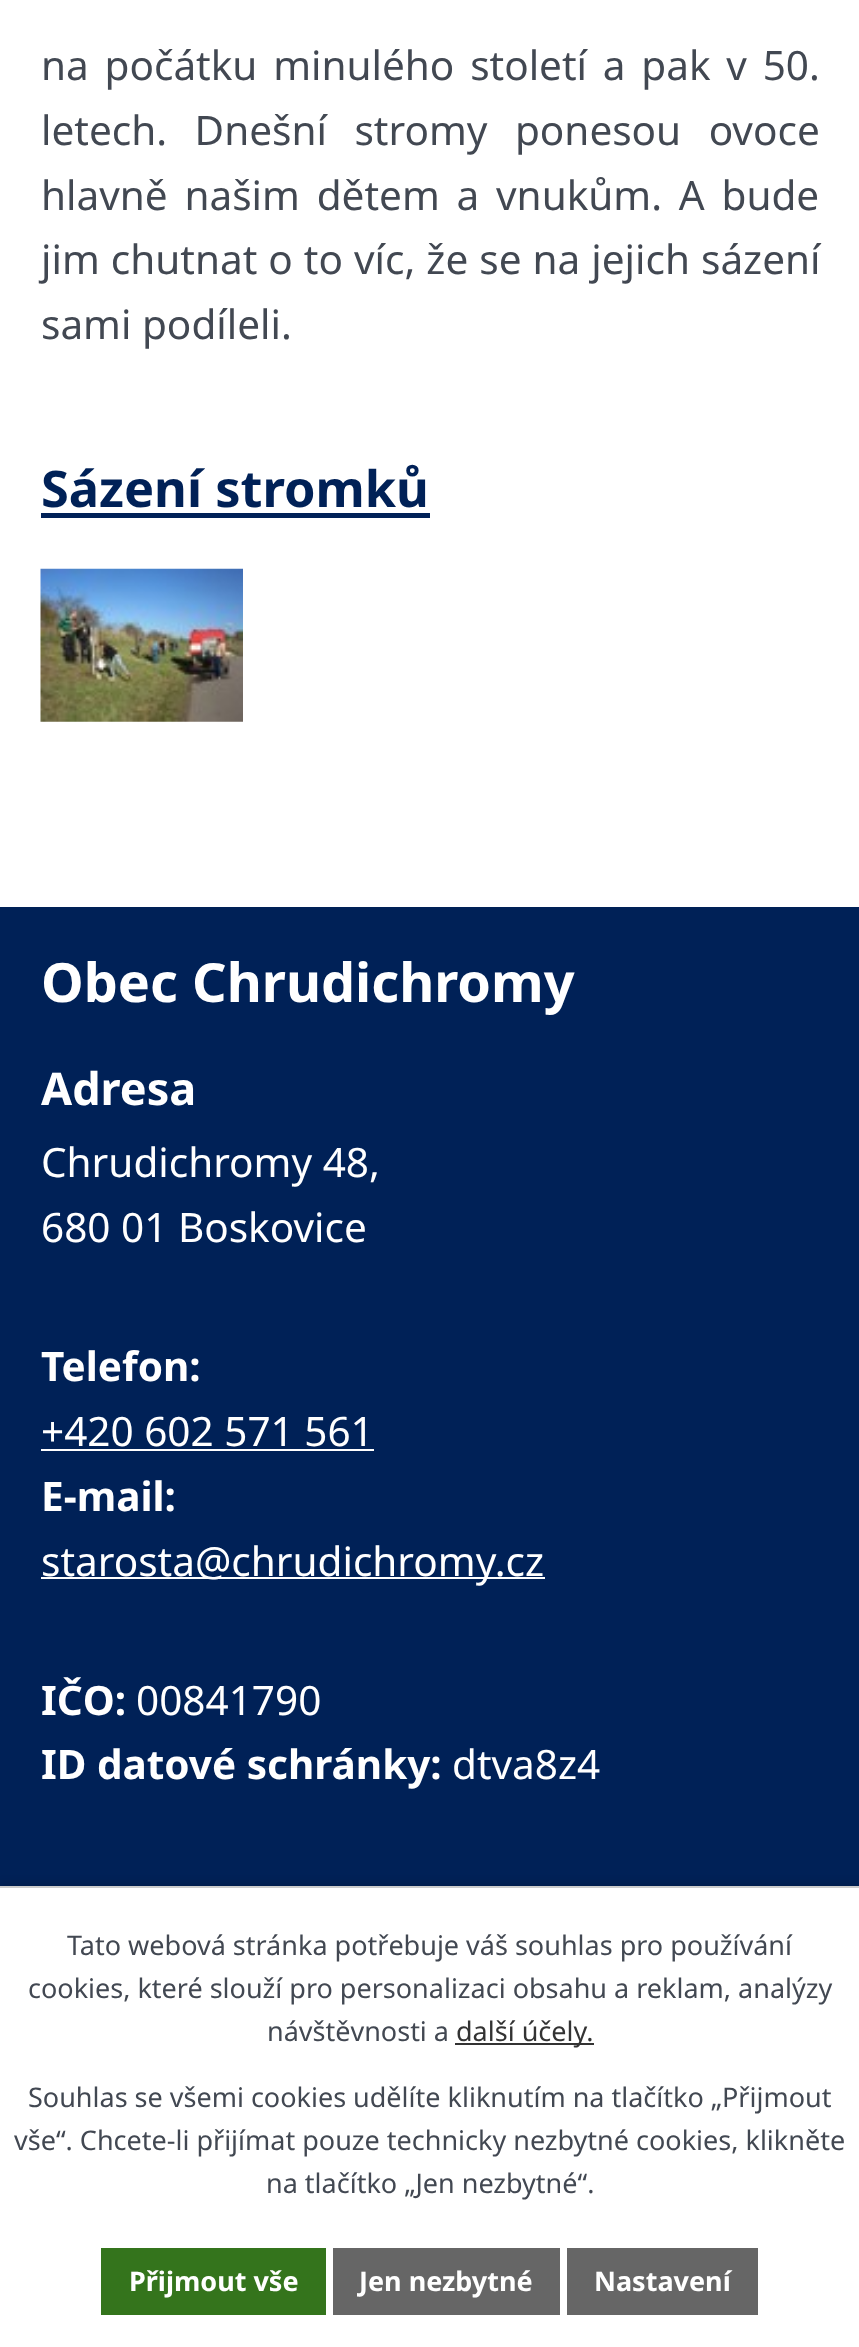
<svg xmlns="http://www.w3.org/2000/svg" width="859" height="2347">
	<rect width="100%" height="100%" fill="#FFFFFF" />
	<g font-family="Noto Sans" font-size="40.5" fill="#424852">
		<text x="41" y="80" word-spacing="5.25">na počátku minulého století a pak v 50.</text>
		<text x="41" y="145" word-spacing="17">letech. Dnešní stromy ponesou ovoce</text>
		<text x="41" y="210" word-spacing="6.25">hlavně našim dětem a vnukům. A bude</text>
		<text x="41" y="274" word-spacing="0.5">jim chutnat o to víc, že se na jejich sázení</text>
		<text x="41" y="339">sami podíleli.</text>
	</g>
	<text x="41" y="507" font-family="Noto Sans" font-size="50.5" font-weight="700" fill="#002157">Sázení stromků</text>
	<rect x="41" y="513" width="389" height="5" fill="#002157" />
	<image x="40" y="568" width="203" height="154" href="assets/img1.png" />
	<rect x="0" y="907" width="859" height="979" fill="#002157" />
	<text x="41" y="1002" font-family="Noto Sans" font-size="54" font-weight="700" fill="#FFFFFF">Obec Chrudichromy</text>
	<text x="41" y="1105" font-family="Noto Sans" font-size="45" font-weight="700" fill="#FFFFFF">Adresa</text>
	<g font-family="Noto Sans" font-size="40.5" fill="#FFFFFF">
		<text x="41" y="1177">Chrudichromy 48,</text>
		<text x="41" y="1242">680 01 Boskovice</text>
	</g>
	<text x="41" y="1381" font-family="Noto Sans" font-size="40.5" font-weight="700" fill="#FFFFFF">Telefon:</text>
	<text x="41" y="1446" font-family="Noto Sans" font-size="40.5" fill="#FFFFFF">+420 602 571 561</text>
	<rect x="41" y="1449" width="333" height="2" fill="#FFFFFF" />
	<text x="41" y="1511" font-family="Noto Sans" font-size="40.5" font-weight="700" fill="#FFFFFF">E-mail:</text>
	<rect x="41" y="1577" width="504" height="2" fill="#FFFFFF" />
	<text x="41" y="1576" font-family="Noto Sans" font-size="40.5" fill="#FFFFFF">starosta@chrudichromy.cz</text>
	<text x="41" y="1715" font-family="Noto Sans" font-size="40.5" font-weight="700" fill="#FFFFFF">IČO:</text>
	<text x="136" y="1715" font-family="Noto Sans" font-size="40.5" fill="#FFFFFF">00841790</text>
	<text x="41" y="1779" font-family="Noto Sans" font-size="40.5" font-weight="700" fill="#FFFFFF">ID datové schránky:</text>
	<text x="452" y="1779" font-family="Noto Sans" font-size="40.5" fill="#FFFFFF">dtva8z4</text>
	<rect x="0" y="1886" width="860" height="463" fill="#000000" fill-opacity="0.2" filter="blur(5.5px)" />
	<rect x="0" y="1888" width="859" height="459" fill="#FFFFFF" />
	<rect x="0" y="1886" width="859" height="2" fill="#CCCCCC" />
	<g font-family="Noto Sans" font-size="27" fill="#424852">
		<text x="67" y="1955">Tato webová stránka potřebuje váš souhlas pro používání</text>
		<text x="28" y="1998">cookies, které slouží pro personalizaci obsahu a reklam, analýzy</text>
		<text x="267" y="2041">návštěvnosti a</text>
	</g>
	<rect x="455" y="2043" width="139" height="2" fill="#333333" />
	<text x="456" y="2041" font-family="Noto Sans" font-size="27" fill="#333333">další účely.</text>
	<g font-family="Noto Sans" font-size="27" fill="#424852">
		<text x="28" y="2107">Souhlas se všemi cookies udělíte kliknutím na tlačítko „Přijmout</text>
		<text x="14" y="2150">vše“. Chcete-li přijímat pouze technicky nezbytné cookies, klikněte</text>
		<text x="266" y="2193">na tlačítko „Jen nezbytné“.</text>
	</g>
	<rect x="101" y="2248" width="225" height="67" fill="#34741C" />
	<text x="129" y="2291" font-family="Noto Sans" font-size="27" font-weight="700" fill="#FFFFFF">Přijmout vše</text>
	<rect x="333" y="2248" width="227" height="67" fill="#666666" />
	<text x="359" y="2291" font-family="Noto Sans" font-size="27" font-weight="700" fill="#FFFFFF">Jen nezbytné</text>
	<rect x="567" y="2248" width="191" height="67" fill="#666666" />
	<text x="594" y="2291" font-family="Noto Sans" font-size="27" font-weight="700" fill="#FFFFFF">Nastavení</text>
</svg>
